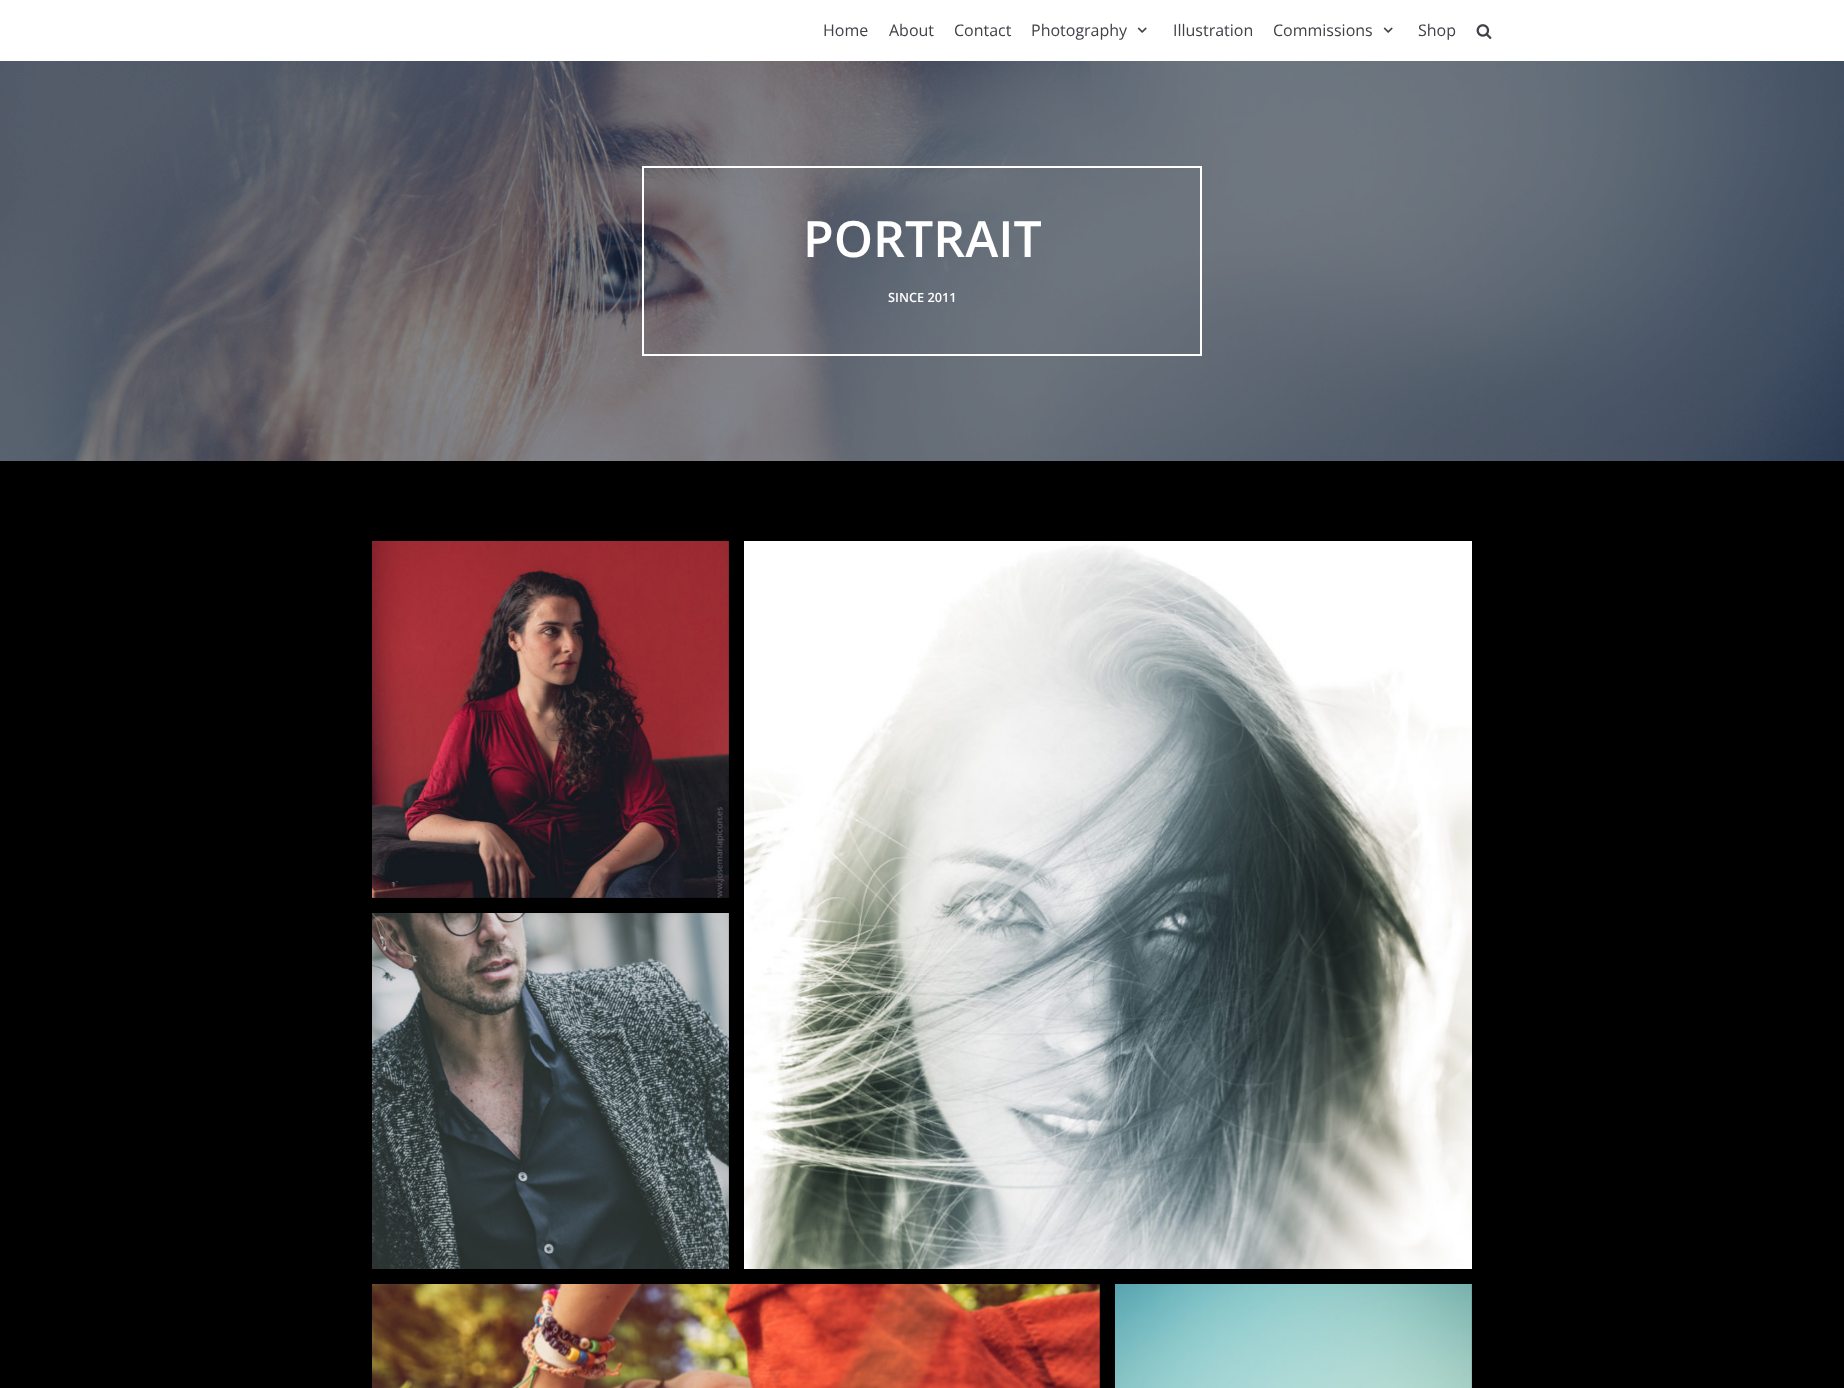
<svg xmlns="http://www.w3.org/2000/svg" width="1844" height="1388">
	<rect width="100%" height="100%" fill="#FFFFFF" />
	<g font-family="Open Sans" font-size="16" fill="#404248">
		<text x="823" y="36">Home</text>
		<text x="889" y="36">About</text>
		<text x="954" y="36">Contact</text>
		<text x="1031" y="36">Photography</text>
	</g>
	<image x="1137" y="27" width="10" height="6" href="assets/img1.png" />
	<g font-family="Open Sans" font-size="16" fill="#404248">
		<text x="1173" y="36">Illustration</text>
		<text x="1273" y="36">Commissions</text>
	</g>
	<image x="1383" y="27" width="10" height="6" href="assets/img1.png" />
	<text x="1418" y="36" font-family="Open Sans" font-size="16" fill="#404248">Shop</text>
	<image x="1476" y="24" width="16" height="15" href="assets/img2.png" />
	<image x="0" y="61" width="1844" height="400" href="assets/img3.png" />
	<rect x="643" y="167" width="558" height="188" fill="none" stroke="#FFFFFF" stroke-width="2" />
	<text x="803" y="257" font-family="Open Sans" font-size="50" font-weight="600" fill="#FFFFFF">PORTRAIT</text>
	<text x="888" y="302" font-family="Open Sans" font-size="12.75" font-weight="600" fill="#FFFFFF">SINCE 2011</text>
	<rect x="0" y="461" width="1844" height="927" fill="#000000" />
	<image x="372" y="541" width="357" height="357" href="assets/img4.png" />
	<image x="744" y="541" width="728" height="728" href="assets/img5.png" />
	<image x="372" y="913" width="357" height="356" href="assets/img6.png" />
	<image x="372" y="1284" width="728" height="104" href="assets/img7.png" />
	<image x="1115" y="1284" width="357" height="104" href="assets/img8.png" />
</svg>
